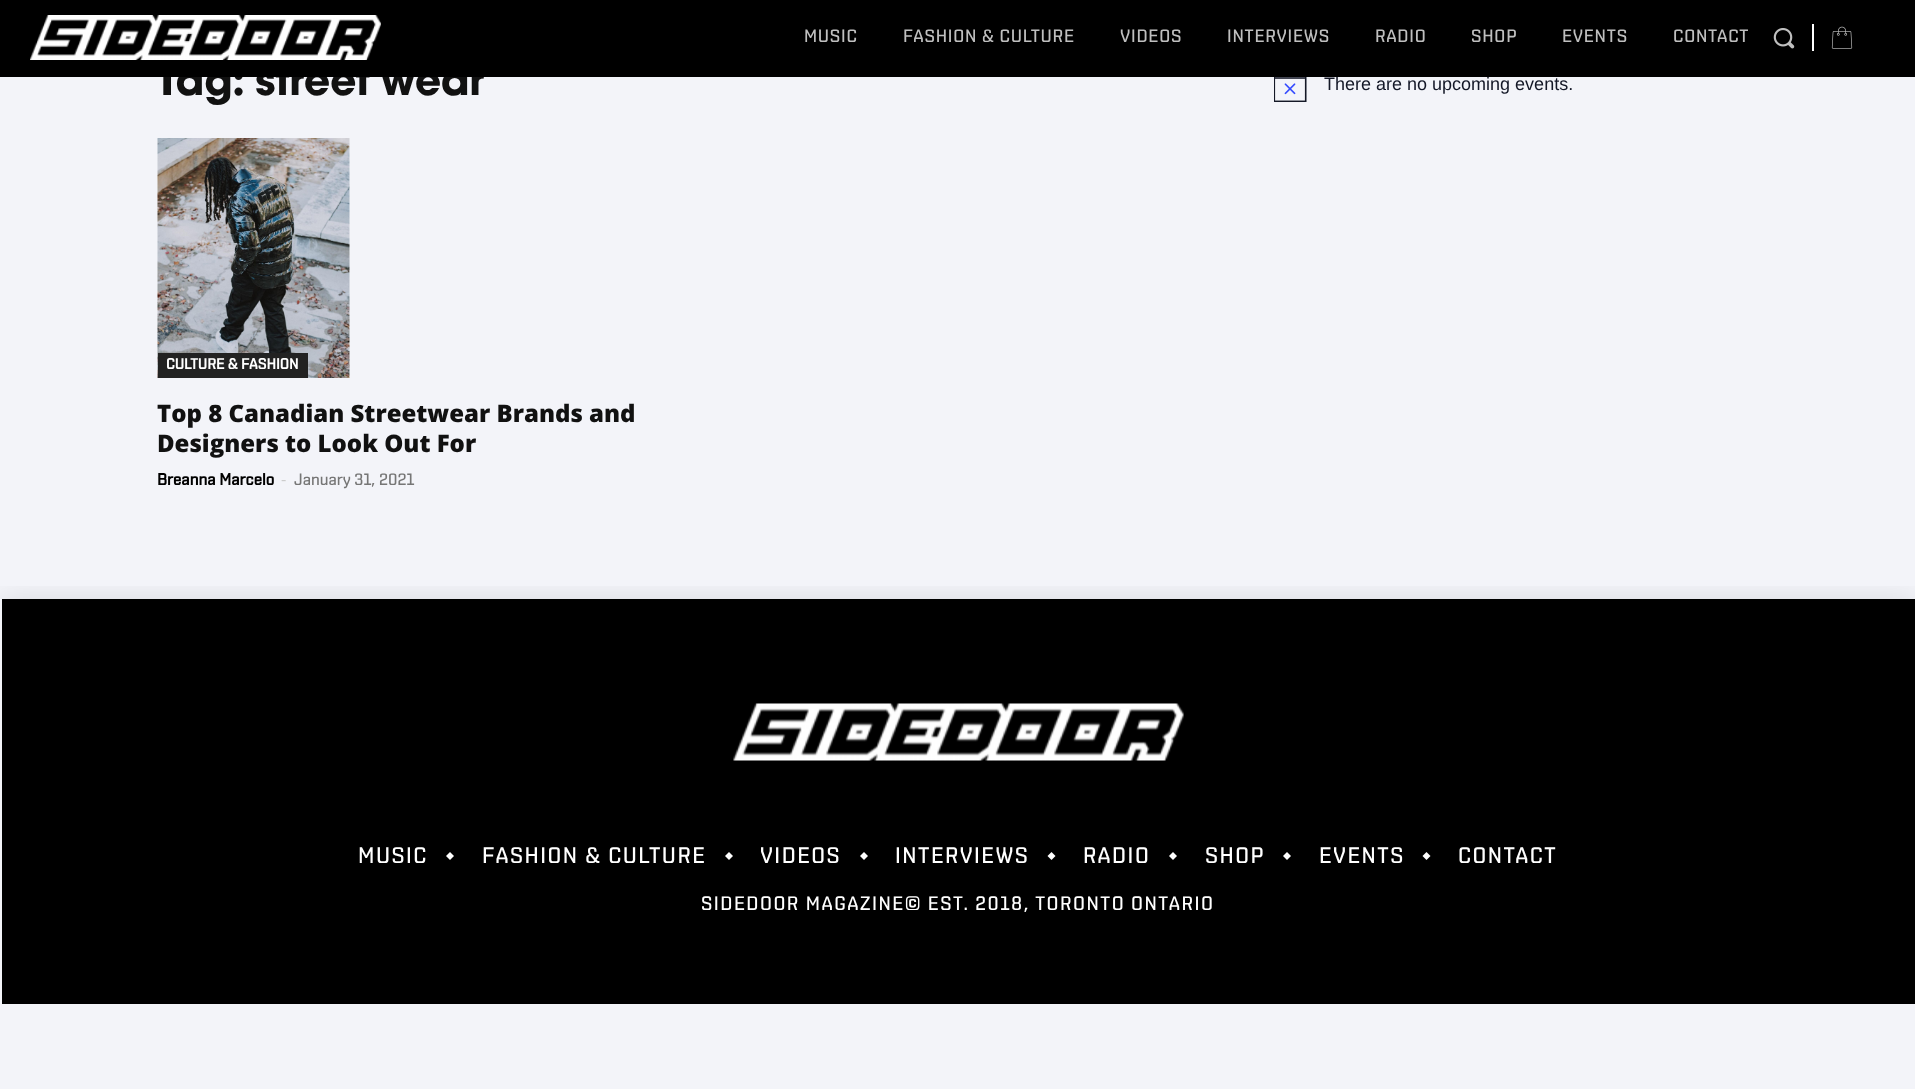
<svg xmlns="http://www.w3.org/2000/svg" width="1915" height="1089">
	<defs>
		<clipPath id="clip1"><rect x="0" y="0" width="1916" height="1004" /></clipPath>
		<clipPath id="clip2"><rect x="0" y="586" width="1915" height="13" /></clipPath>
	</defs>
	<rect width="100%" height="100%" fill="#F3F4F9" />
	<text x="157" y="95" font-family="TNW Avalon" font-size="45" font-weight="700" fill="#111111">Tag: street wear</text>
	<text x="1324" y="90" font-family="Liberation Sans" font-size="18" fill="#141827">There are no upcoming events.</text>
	<rect x="0" y="0" width="1915" height="77" fill="#000000" />
	<image x="30" y="15" width="351" height="45" href="assets/img1.png" />
	<g font-family="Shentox" font-size="18" font-weight="500" letter-spacing="0.75" fill="#BFBFBF">
		<text x="804" y="42">MUSIC</text>
		<text x="903" y="42">FASHION &amp; CULTURE</text>
		<text x="1120" y="42">VIDEOS</text>
		<text x="1227" y="42">INTERVIEWS</text>
		<text x="1375" y="42">RADIO</text>
		<text x="1471" y="42">SHOP</text>
		<text x="1562" y="42">EVENTS</text>
		<text x="1673" y="42">CONTACT</text>
	</g>
	<image x="1773" y="28" width="22" height="21" href="assets/img2.png" />
	<rect x="1812" y="24" width="2" height="27" fill="#FFFFFF" />
	<image x="1831" y="26" width="22" height="23" href="assets/img3.png" />
	<image x="157" y="138" width="193" height="240" href="assets/img4.png" />
	<rect x="158" y="353" width="150" height="25" fill="#222222" />
	<text x="166" y="369" font-family="Shentox" font-size="15" font-weight="700" fill="#FFFFFF">CULTURE &amp; FASHION</text>
	<g font-family="Open Sans" font-size="24" font-weight="800" fill="#111111">
		<text x="157" y="422">Top 8 Canadian Streetwear Brands and</text>
		<text x="157" y="452">Designers to Look Out For</text>
	</g>
	<text x="157" y="485" font-family="Shentox" font-size="16.5" font-weight="700" fill="#000000">Breanna Marcelo</text>
	<text x="281" y="485" font-family="Open Sans" font-size="16.5" fill="#CCCCCC">-</text>
	<text x="294" y="485" font-family="Shentox" font-size="16.5" font-weight="500" fill="#767676">January 31, 2021</text>
	<image x="1274" y="77" width="33" height="25" href="assets/img5.png" />
	<g clip-path="url(#clip1)">
		<g clip-path="url(#clip2)">
			<rect x="0" y="599" width="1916" height="405" fill="#000000" fill-opacity="0.1" filter="blur(15px)" />
		</g>
	</g>
	<rect x="2" y="599" width="1913" height="405" fill="#000000" />
	<image x="733" y="703" width="451" height="58" href="assets/img6.png" />
	<text x="358" y="863" font-family="Shentox" font-size="22.5" font-weight="500" letter-spacing="1.5" fill="#FFFFFF">MUSIC</text>
	<path d="M454 856L450 860L446 856L450 852Z" fill="#FFFFFF" />
	<text x="482" y="863" font-family="Shentox" font-size="22.5" font-weight="500" letter-spacing="1.5" fill="#FFFFFF">FASHION &amp; CULTURE</text>
	<path d="M733 856L729 860L725 856L729 852Z" fill="#FFFFFF" />
	<text x="760" y="863" font-family="Shentox" font-size="22.5" font-weight="500" letter-spacing="1.5" fill="#FFFFFF">VIDEOS</text>
	<path d="M868 856L864 860L860 856L864 852Z" fill="#FFFFFF" />
	<text x="895" y="863" font-family="Shentox" font-size="22.5" font-weight="500" letter-spacing="1.5" fill="#FFFFFF">INTERVIEWS</text>
	<path d="M1055.5 856L1051.5 860L1047.5 856L1051.5 852Z" fill="#FFFFFF" />
	<text x="1083" y="863" font-family="Shentox" font-size="22.5" font-weight="500" letter-spacing="1.5" fill="#FFFFFF">RADIO</text>
	<path d="M1177 856L1173 860L1169 856L1173 852Z" fill="#FFFFFF" />
	<text x="1205" y="863" font-family="Shentox" font-size="22.5" font-weight="500" letter-spacing="1.5" fill="#FFFFFF">SHOP</text>
	<path d="M1291 856L1287 860L1283 856L1287 852Z" fill="#FFFFFF" />
	<text x="1319" y="863" font-family="Shentox" font-size="22.5" font-weight="500" letter-spacing="1.5" fill="#FFFFFF">EVENTS</text>
	<path d="M1430.5 856L1426.5 860L1422.5 856L1426.5 852Z" fill="#FFFFFF" />
	<text x="1458" y="863" font-family="Shentox" font-size="22.5" font-weight="500" letter-spacing="1.5" fill="#FFFFFF">CONTACT</text>
	<text x="701" y="910" font-family="Shentox" font-size="19.5" font-weight="500" letter-spacing="1.5" fill="#FFFFFF">SIDEDOOR MAGAZINE© EST. 2018, TORONTO ONTARIO</text>
</svg>
